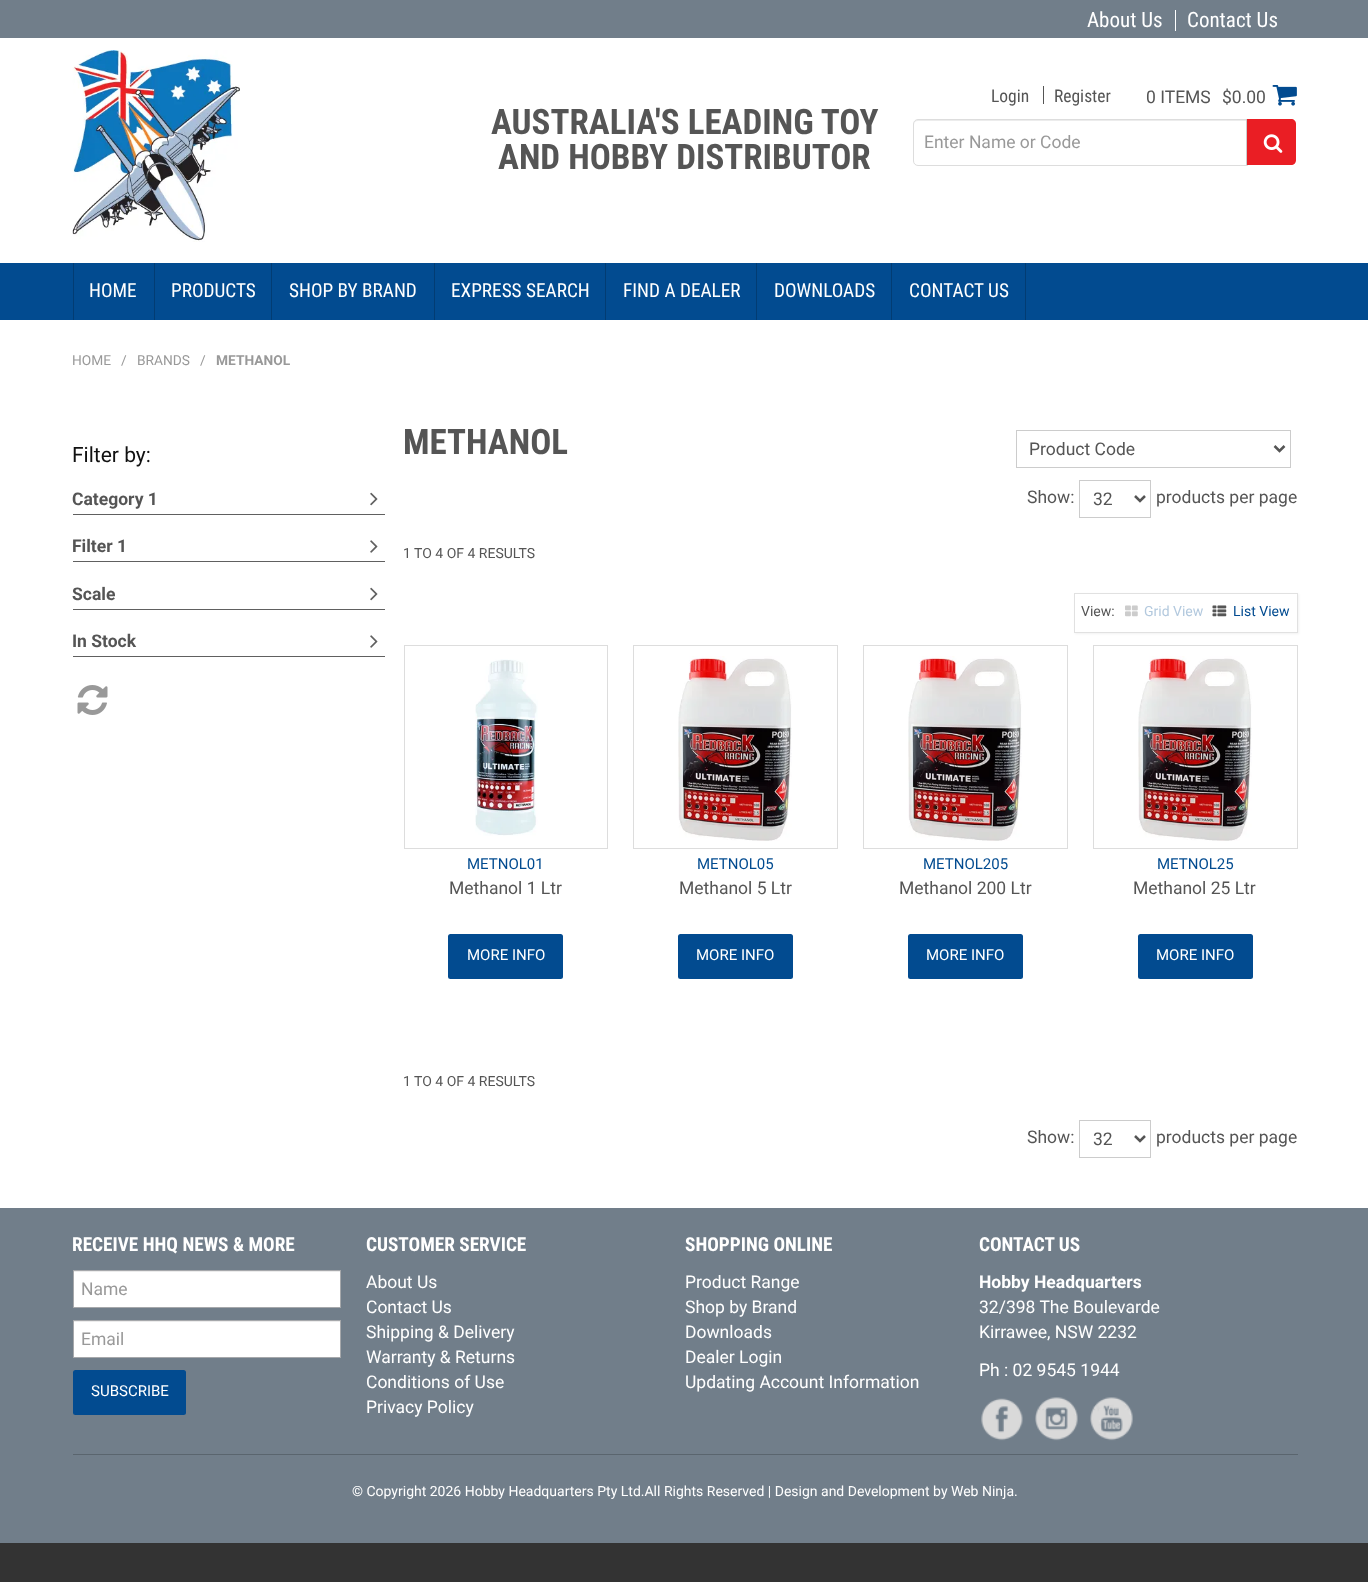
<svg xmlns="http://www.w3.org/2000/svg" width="1368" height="1582">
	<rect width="100%" height="100%" fill="#333333" />
	<rect x="0" y="38" width="1368" height="1170" fill="#FFFFFF" />
	<rect x="0" y="0" width="1368" height="38" fill="#717E8A" />
	<rect x="1175" y="10" width="1" height="21" fill="#FFFFFF" />
	<g font-family="Roboto Condensed" font-size="21" fill="#FFFFFF">
		<text x="1087" y="27">About Us</text>
		<text x="1187" y="27">Contact Us</text>
	</g>
	<image x="72" y="50" width="168" height="192" href="assets/img1.png" />
	<g font-family="Roboto Condensed" font-size="35" font-weight="700" fill="#555555">
		<text x="491" y="134">AUSTRALIA'S LEADING TOY</text>
		<text x="498" y="169">AND HOBBY DISTRIBUTOR</text>
	</g>
	<rect x="1043" y="86" width="1" height="18" fill="#555555" />
	<g font-family="Roboto Condensed" font-size="17.5" fill="#555555">
		<text x="991" y="102">Login</text>
		<text x="1054" y="102">Register</text>
	</g>
	<g font-family="Roboto" font-size="17.5" fill="#555555">
		<text x="1146" y="103">0 ITEMS</text>
		<text x="1222" y="103">$0.00</text>
	</g>
	<image x="1272" y="85" width="25" height="21" href="assets/img2.png" />
	<path d="M918 121H1246V120H918C915 120 914 122 914 125C914 123 915 121 918 121Z" fill="#ECECEC" />
	<path d="M918 119.5H1247.5V165.5H918C915.5 165.5 913.5 163.5 913.5 161V124C913.5 121.5 915.5 119.5 918 119.5Z" fill="none" stroke="#DDDDDD" />
	<text x="924" y="148" font-family="Roboto" font-size="17.5" fill="#999999">Enter Name or Code</text>
	<path d="M1246 119H1291C1294 119 1296 121 1296 124V160C1296 163 1294 165 1291 165H1246Z" fill="#EA1E24" />
	<rect x="1246" y="119" width="1" height="46" fill="#CCCCCC" />
	<image x="1263" y="134" width="20" height="19" href="assets/img3.png" />
	<rect x="0" y="263" width="1368" height="57" fill="#024B90" />
	<rect x="154" y="263" width="1" height="57" fill="#023C73" />
	<rect x="73" y="263" width="1" height="57" fill="#023C73" />
	<text x="89" y="297" font-family="Roboto Condensed" font-size="19.25" fill="#FFFFFF">HOME</text>
	<rect x="271" y="263" width="1" height="57" fill="#023C73" />
	<text x="171" y="297" font-family="Roboto Condensed" font-size="19.25" fill="#FFFFFF">PRODUCTS</text>
	<rect x="434" y="263" width="1" height="57" fill="#023C73" />
	<text x="289" y="297" font-family="Roboto Condensed" font-size="19.25" fill="#FFFFFF">SHOP BY BRAND</text>
	<rect x="605" y="263" width="1" height="57" fill="#023C73" />
	<text x="451" y="297" font-family="Roboto Condensed" font-size="19.25" fill="#FFFFFF">EXPRESS SEARCH</text>
	<rect x="756" y="263" width="1" height="57" fill="#023C73" />
	<text x="623" y="297" font-family="Roboto Condensed" font-size="19.25" fill="#FFFFFF">FIND A DEALER</text>
	<rect x="891" y="263" width="1" height="57" fill="#023C73" />
	<text x="774" y="297" font-family="Roboto Condensed" font-size="19.25" fill="#FFFFFF">DOWNLOADS</text>
	<rect x="1025" y="263" width="1" height="57" fill="#023C73" />
	<text x="909" y="297" font-family="Roboto Condensed" font-size="19.25" fill="#FFFFFF">CONTACT US</text>
	<g font-family="Roboto" font-size="13.75" fill="#999999">
		<text x="72" y="365">HOME</text>
		<text x="121" y="365">/</text>
		<text x="137" y="365">BRANDS</text>
		<text x="200" y="365">/</text>
	</g>
	<text x="216" y="365" font-family="Roboto" font-size="13.75" font-weight="700" fill="#999999">METHANOL</text>
	<text x="72" y="462" font-family="Roboto" font-size="21" fill="#111111">Filter by:</text>
	<rect x="73" y="514" width="312" height="1" fill="#606060" />
	<text x="72" y="505" font-family="Roboto" font-size="17.5" font-weight="700" fill="#555555">Category 1</text>
	<image x="370" y="492" width="8" height="14" href="assets/img4.png" />
	<rect x="73" y="561" width="312" height="1" fill="#606060" />
	<text x="72" y="552" font-family="Roboto" font-size="17.5" font-weight="700" fill="#555555">Filter 1</text>
	<image x="370" y="540" width="8" height="13" href="assets/img5.png" />
	<rect x="73" y="609" width="312" height="1" fill="#606060" />
	<text x="72" y="600" font-family="Roboto" font-size="17.5" font-weight="700" fill="#555555">Scale</text>
	<image x="370" y="587" width="8" height="14" href="assets/img4.png" />
	<rect x="73" y="656" width="312" height="1" fill="#606060" />
	<text x="72" y="647" font-family="Roboto" font-size="17.5" font-weight="700" fill="#555555">In Stock</text>
	<image x="370" y="635" width="8" height="13" href="assets/img5.png" />
	<image x="77" y="685" width="31" height="30" href="assets/img6.png" />
	<text x="403" y="454" font-family="Roboto Condensed" font-size="35" font-weight="700" fill="#555555">METHANOL</text>
	<rect x="1016.5" y="430.5" width="274" height="37" fill="none" stroke="#CCCCCC" />
	<path d="M1274.5 446L1279.5 451L1284.5 446" fill="none" stroke="#555555" stroke-width="2.5" />
	<g font-family="Roboto" font-size="17.5" fill="#555555">
		<text x="1029" y="455">Product Code</text>
		<text x="1027" y="503">Show:</text>
	</g>
	<rect x="1079.5" y="480.5" width="71" height="37" fill="none" stroke="#CCCCCC" />
	<path d="M1135 496L1140 501L1145 496" fill="none" stroke="#555555" stroke-width="2.5" />
	<g font-family="Roboto" font-size="17.5" fill="#555555">
		<text x="1093" y="505">32</text>
		<text x="1156" y="503">products per page</text>
	</g>
	<text x="403" y="558" font-family="Roboto" font-size="14" fill="#555555">1 TO 4 OF 4 RESULTS</text>
	<rect x="1075" y="594" width="224" height="40" fill="#000000" fill-opacity="0.05" filter="blur(1px)" />
	<rect x="1074.5" y="593.5" width="223" height="39" fill="#FFFFFF" stroke="#E1E1E1" />
	<text x="1081" y="616" font-family="Roboto" font-size="14" fill="#555555">View:</text>
	<image x="1125" y="605" width="13" height="12" href="assets/img7.png" />
	<text x="1144" y="616" font-family="Roboto" font-size="14" fill="#B3C9DE">Grid View</text>
	<image x="1212" y="605" width="15" height="12" href="assets/img8.png" />
	<text x="1233" y="616" font-family="Roboto" font-size="14" fill="#024B90">List View</text>
	<rect x="404.5" y="645.5" width="203" height="203" fill="none" stroke="#DDDDDD" />
	<image x="475" y="659" width="63" height="177" href="assets/img9.png" />
	<text x="467" y="869" font-family="Roboto" font-size="15" fill="#024B90">METNOL01</text>
	<text x="449" y="894" font-family="Roboto" font-size="17.5" fill="#555555">Methanol 1 Ltr</text>
	<rect x="448" y="934" width="115" height="45" rx="2.5" fill="#024B90" />
	<text x="467" y="960" font-family="Roboto" font-size="15" fill="#FFFFFF">MORE INFO</text>
	<rect x="633.5" y="645.5" width="204" height="203" fill="none" stroke="#DDDDDD" />
	<image x="678" y="656" width="114" height="185" href="assets/img10.png" />
	<text x="697" y="869" font-family="Roboto" font-size="15" fill="#024B90">METNOL05</text>
	<text x="679" y="894" font-family="Roboto" font-size="17.5" fill="#555555">Methanol 5 Ltr</text>
	<rect x="678" y="934" width="115" height="45" rx="2.5" fill="#024B90" />
	<text x="696" y="960" font-family="Roboto" font-size="15" fill="#FFFFFF">MORE INFO</text>
	<rect x="863.5" y="645.5" width="204" height="203" fill="none" stroke="#DDDDDD" />
	<image x="908" y="656" width="114" height="185" href="assets/img10.png" />
	<text x="923" y="869" font-family="Roboto" font-size="15" fill="#024B90">METNOL205</text>
	<text x="899" y="894" font-family="Roboto" font-size="17.5" fill="#555555">Methanol 200 Ltr</text>
	<rect x="908" y="934" width="115" height="45" rx="2.5" fill="#024B90" />
	<text x="926" y="960" font-family="Roboto" font-size="15" fill="#FFFFFF">MORE INFO</text>
	<rect x="1093.5" y="645.5" width="204" height="203" fill="none" stroke="#DDDDDD" />
	<image x="1138" y="656" width="114" height="185" href="assets/img10.png" />
	<text x="1157" y="869" font-family="Roboto" font-size="15" fill="#024B90">METNOL25</text>
	<text x="1133" y="894" font-family="Roboto" font-size="17.5" fill="#555555">Methanol 25 Ltr</text>
	<rect x="1138" y="934" width="115" height="45" rx="2.5" fill="#024B90" />
	<text x="1156" y="960" font-family="Roboto" font-size="15" fill="#FFFFFF">MORE INFO</text>
	<text x="403" y="1086" font-family="Roboto" font-size="14" fill="#555555">1 TO 4 OF 4 RESULTS</text>
	<text x="1027" y="1143" font-family="Roboto" font-size="17.5" fill="#555555">Show:</text>
	<rect x="1079.5" y="1120.5" width="71" height="37" fill="none" stroke="#CCCCCC" />
	<path d="M1135 1136L1140 1141L1145 1136" fill="none" stroke="#555555" stroke-width="2.5" />
	<g font-family="Roboto" font-size="17.5" fill="#555555">
		<text x="1093" y="1145">32</text>
		<text x="1156" y="1143">products per page</text>
	</g>
	<rect x="0" y="1208" width="1368" height="335" fill="#717E8A" />
	<text x="72" y="1251" font-family="Roboto Condensed" font-size="19.25" font-weight="700" fill="#FFFFFF">RECEIVE HHQ NEWS &amp; MORE</text>
	<rect x="74" y="1272" width="266" height="35" fill="#FFFFFF" />
	<rect x="74" y="1271" width="266" height="1" fill="#ECECEC" />
	<rect x="73.5" y="1270.5" width="267" height="37" fill="none" stroke="#A6A8AB" />
	<text x="81" y="1295" font-family="Roboto" font-size="17.5" fill="#999999">Name</text>
	<rect x="74" y="1322" width="266" height="35" fill="#FFFFFF" />
	<rect x="74" y="1321" width="266" height="1" fill="#ECECEC" />
	<rect x="73.5" y="1320.5" width="267" height="37" fill="none" stroke="#A6A8AB" />
	<text x="81" y="1345" font-family="Roboto" font-size="17.5" fill="#999999">Email</text>
	<rect x="73" y="1370" width="113" height="45" rx="2.5" fill="#024B90" />
	<text x="91" y="1396" font-family="Roboto" font-size="15" fill="#FFFFFF">SUBSCRIBE</text>
	<text x="366" y="1251" font-family="Roboto Condensed" font-size="19.25" font-weight="700" fill="#FFFFFF">CUSTOMER SERVICE</text>
	<g font-family="Roboto" font-size="17.5" fill="#FFFFFF">
		<text x="366" y="1288">About Us</text>
		<text x="366" y="1313">Contact Us</text>
		<text x="366" y="1338">Shipping &amp; Delivery</text>
		<text x="366" y="1363">Warranty &amp; Returns</text>
		<text x="366" y="1388">Conditions of Use</text>
		<text x="366" y="1413">Privacy Policy</text>
	</g>
	<text x="685" y="1251" font-family="Roboto Condensed" font-size="19.25" font-weight="700" fill="#FFFFFF">SHOPPING ONLINE</text>
	<g font-family="Roboto" font-size="17.5" fill="#FFFFFF">
		<text x="685" y="1288">Product Range</text>
		<text x="685" y="1313">Shop by Brand</text>
		<text x="685" y="1338">Downloads</text>
		<text x="685" y="1363">Dealer Login</text>
		<text x="685" y="1388">Updating Account Information</text>
	</g>
	<text x="979" y="1251" font-family="Roboto Condensed" font-size="19.25" font-weight="700" fill="#FFFFFF">CONTACT US</text>
	<text x="979" y="1288" font-family="Roboto" font-size="17.5" font-weight="700" fill="#FFFFFF">Hobby Headquarters</text>
	<g font-family="Roboto" font-size="17.5" fill="#FFFFFF">
		<text x="979" y="1313">32/398 The Boulevarde</text>
		<text x="979" y="1338">Kirrawee, NSW 2232</text>
		<text x="979" y="1376">Ph : 02 9545 1944</text>
	</g>
	<image x="981" y="1398" width="42" height="43" href="assets/img11.png" />
	<image x="1035" y="1397" width="43" height="44" href="assets/img12.png" />
	<image x="1090" y="1397" width="43" height="44" href="assets/img13.png" />
	<rect x="73" y="1454" width="1225" height="1" fill="#5A656E" />
	<text x="352" y="1496" font-family="Roboto" font-size="14" fill="#FFFFFF">© Copyright 2026 Hobby Headquarters Pty Ltd.All Rights Reserved | Design and Development by Web Ninja.</text>
</svg>
